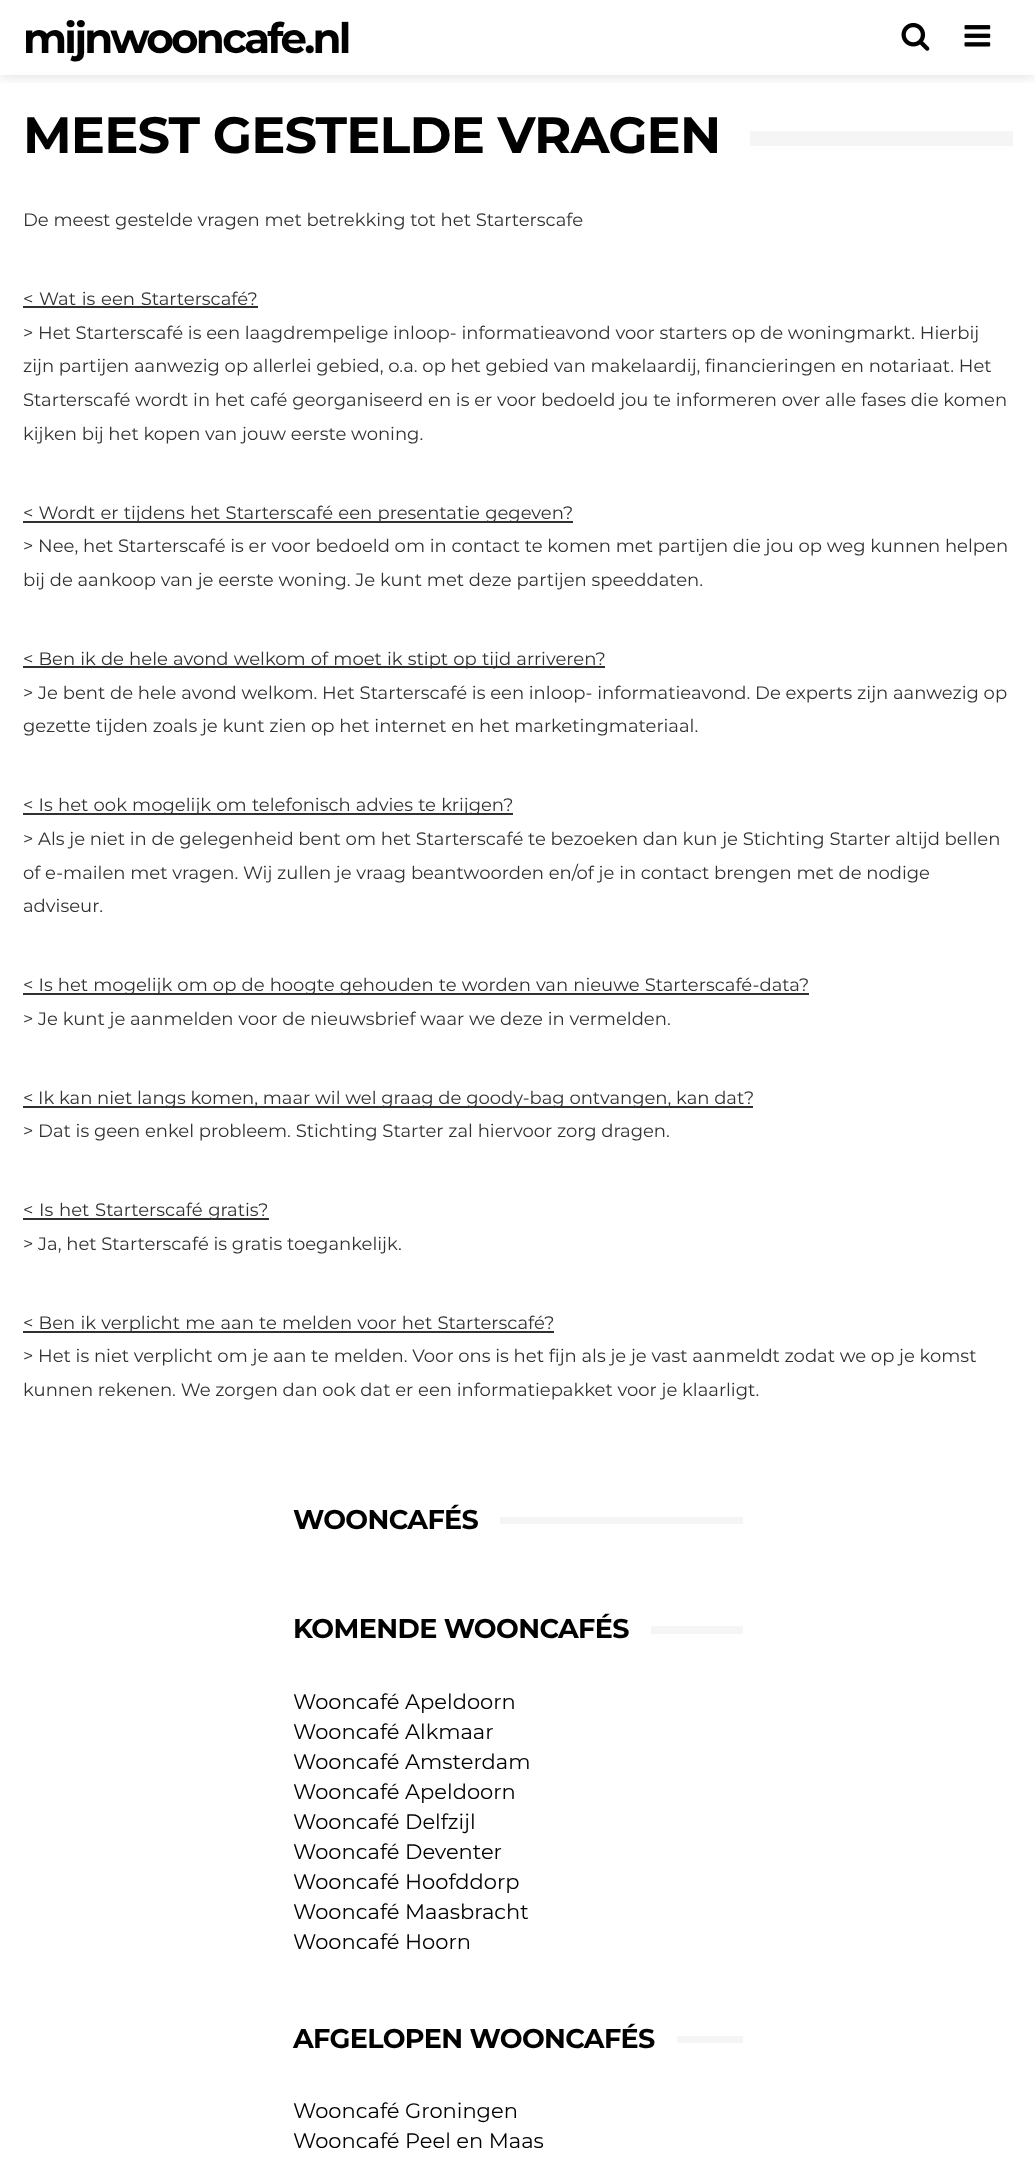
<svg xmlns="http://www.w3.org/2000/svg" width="1035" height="2161">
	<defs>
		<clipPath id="clip1"><rect x="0" y="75" width="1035" height="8" /></clipPath>
	</defs>
	<rect width="100%" height="100%" fill="#FFFFFF" />
	<g clip-path="url(#clip1)">
		<rect x="0" y="0" width="1035" height="75" fill="#000000" fill-opacity="0.15" filter="blur(7.5px)" />
	</g>
	<text x="23" y="53" font-family="Montserrat" font-size="42" font-weight="700" letter-spacing="-2.75" fill="#010101">mijnwooncafe.nl</text>
	<image x="901" y="22" width="29" height="29" href="assets/img1.png" />
	<image x="964" y="25" width="27" height="22" href="assets/img2.png" />
	<text x="23" y="153" font-family="Montserrat" font-size="51" font-weight="700" letter-spacing="-0.9" fill="#010101">MEEST GESTELDE VRAGEN</text>
	<rect x="750" y="131" width="263" height="15" fill="#F5F5F5" />
	<g font-family="Montserrat" font-size="18" fill="#313131">
		<text x="23" y="226">De meest gestelde vragen met betrekking tot het Starterscafe</text>
		<text x="23" y="305" word-spacing="1">&lt; Wat is een Starterscafé?</text>
	</g>
	<rect x="23" y="306" width="235" height="2" fill="#313131" />
	<g font-family="Montserrat" font-size="18" fill="#313131">
		<text x="23" y="339">&gt; Het Starterscafé is een laagdrempelige inloop- informatieavond voor starters op de woningmarkt. Hierbij</text>
		<text x="23" y="372">zijn partijen aanwezig op allerlei gebied, o.a. op het gebied van makelaardij, financieringen en notariaat. Het</text>
		<text x="23" y="406">Starterscafé wordt in het café georganiseerd en is er voor bedoeld jou te informeren over alle fases die komen</text>
		<text x="23" y="440">kijken bij het kopen van jouw eerste woning.</text>
	</g>
	<rect x="23" y="521" width="550" height="2" fill="#313131" />
	<g font-family="Montserrat" font-size="18" fill="#313131">
		<text x="23" y="519" word-spacing="0.5">&lt; Wordt er tijdens het Starterscafé een presentatie gegeven?</text>
		<text x="23" y="552">&gt; Nee, het Starterscafé is er voor bedoeld om in contact te komen met partijen die jou op weg kunnen helpen</text>
		<text x="23" y="586">bij de aankoop van je eerste woning. Je kunt met deze partijen speeddaten.</text>
	</g>
	<rect x="23" y="666" width="582" height="2" fill="#313131" />
	<g font-family="Montserrat" font-size="18" fill="#313131">
		<text x="23" y="665" word-spacing="0.4">&lt; Ben ik de hele avond welkom of moet ik stipt op tijd arriveren?</text>
		<text x="23" y="699">&gt; Je bent de hele avond welkom. Het Starterscafé is een inloop- informatieavond. De experts zijn aanwezig op</text>
		<text x="23" y="732">gezette tijden zoals je kunt zien op het internet en het marketingmateriaal.</text>
	</g>
	<rect x="23" y="813" width="490" height="2" fill="#313131" />
	<g font-family="Montserrat" font-size="18" fill="#313131">
		<text x="23" y="811" word-spacing="0.5">&lt; Is het ook mogelijk om telefonisch advies te krijgen?</text>
		<text x="23" y="845">&gt; Als je niet in de gelegenheid bent om het Starterscafé te bezoeken dan kun je Stichting Starter altijd bellen</text>
		<text x="23" y="879">of e-mailen met vragen. Wij zullen je vraag beantwoorden en/of je in contact brengen met de nodige</text>
		<text x="23" y="912">adviseur.</text>
	</g>
	<rect x="23" y="993" width="786" height="2" fill="#313131" />
	<g font-family="Montserrat" font-size="18" fill="#313131">
		<text x="23" y="991" word-spacing="0.4">&lt; Is het mogelijk om op de hoogte gehouden te worden van nieuwe Starterscafé-data?</text>
		<text x="23" y="1025">&gt; Je kunt je aanmelden voor de nieuwsbrief waar we deze in vermelden.</text>
	</g>
	<rect x="23" y="1106" width="730" height="2" fill="#313131" />
	<g font-family="Montserrat" font-size="18" fill="#313131">
		<text x="23" y="1104">&lt; Ik kan niet langs komen, maar wil wel graag de goody-bag ontvangen, kan dat?</text>
		<text x="23" y="1137">&gt; Dat is geen enkel probleem. Stichting Starter zal hiervoor zorg dragen.</text>
	</g>
	<rect x="23" y="1218" width="246" height="2" fill="#313131" />
	<g font-family="Montserrat" font-size="18" fill="#313131">
		<text x="23" y="1216" word-spacing="1">&lt; Is het Starterscafé gratis?</text>
		<text x="23" y="1250">&gt; Ja, het Starterscafé is gratis toegankelijk.</text>
	</g>
	<rect x="23" y="1331" width="531" height="2" fill="#313131" />
	<g font-family="Montserrat" font-size="18" fill="#313131">
		<text x="23" y="1329" word-spacing="0.5">&lt; Ben ik verplicht me aan te melden voor het Starterscafé?</text>
		<text x="23" y="1362">&gt; Het is niet verplicht om je aan te melden. Voor ons is het fijn als je je vast aanmeldt zodat we op je komst</text>
		<text x="23" y="1396">kunnen rekenen. We zorgen dan ook dat er een informatiepakket voor je klaarligt.</text>
	</g>
	<text x="293" y="1529" font-family="Montserrat" font-size="27" font-weight="700" letter-spacing="-0.6" fill="#010101">WOONCAFÉS</text>
	<rect x="500" y="1517" width="243" height="7" fill="#F5F5F5" />
	<text x="293" y="1638" font-family="Montserrat" font-size="27" font-weight="700" letter-spacing="-0.6" fill="#010101">KOMENDE WOONCAFÉS</text>
	<rect x="651" y="1626" width="92" height="8" fill="#F5F5F5" />
	<g font-family="Montserrat" font-size="21" fill="#010101">
		<text x="293" y="1709">Wooncafé Apeldoorn</text>
		<text x="293" y="1739">Wooncafé Alkmaar</text>
		<text x="293" y="1769">Wooncafé Amsterdam</text>
		<text x="293" y="1799">Wooncafé Apeldoorn</text>
		<text x="293" y="1829">Wooncafé Delfzijl</text>
		<text x="293" y="1859">Wooncafé Deventer</text>
		<text x="293" y="1889">Wooncafé Hoofddorp</text>
		<text x="293" y="1919">Wooncafé Maasbracht</text>
		<text x="293" y="1949">Wooncafé Hoorn</text>
	</g>
	<text x="293" y="2048" font-family="Montserrat" font-size="27" font-weight="700" letter-spacing="-0.6" fill="#010101">AFGELOPEN WOONCAFÉS</text>
	<rect x="677" y="2036" width="66" height="7" fill="#F5F5F5" />
	<g font-family="Montserrat" font-size="21" fill="#010101">
		<text x="293" y="2118">Wooncafé Groningen</text>
		<text x="293" y="2148">Wooncafé Peel en Maas</text>
	</g>
</svg>
